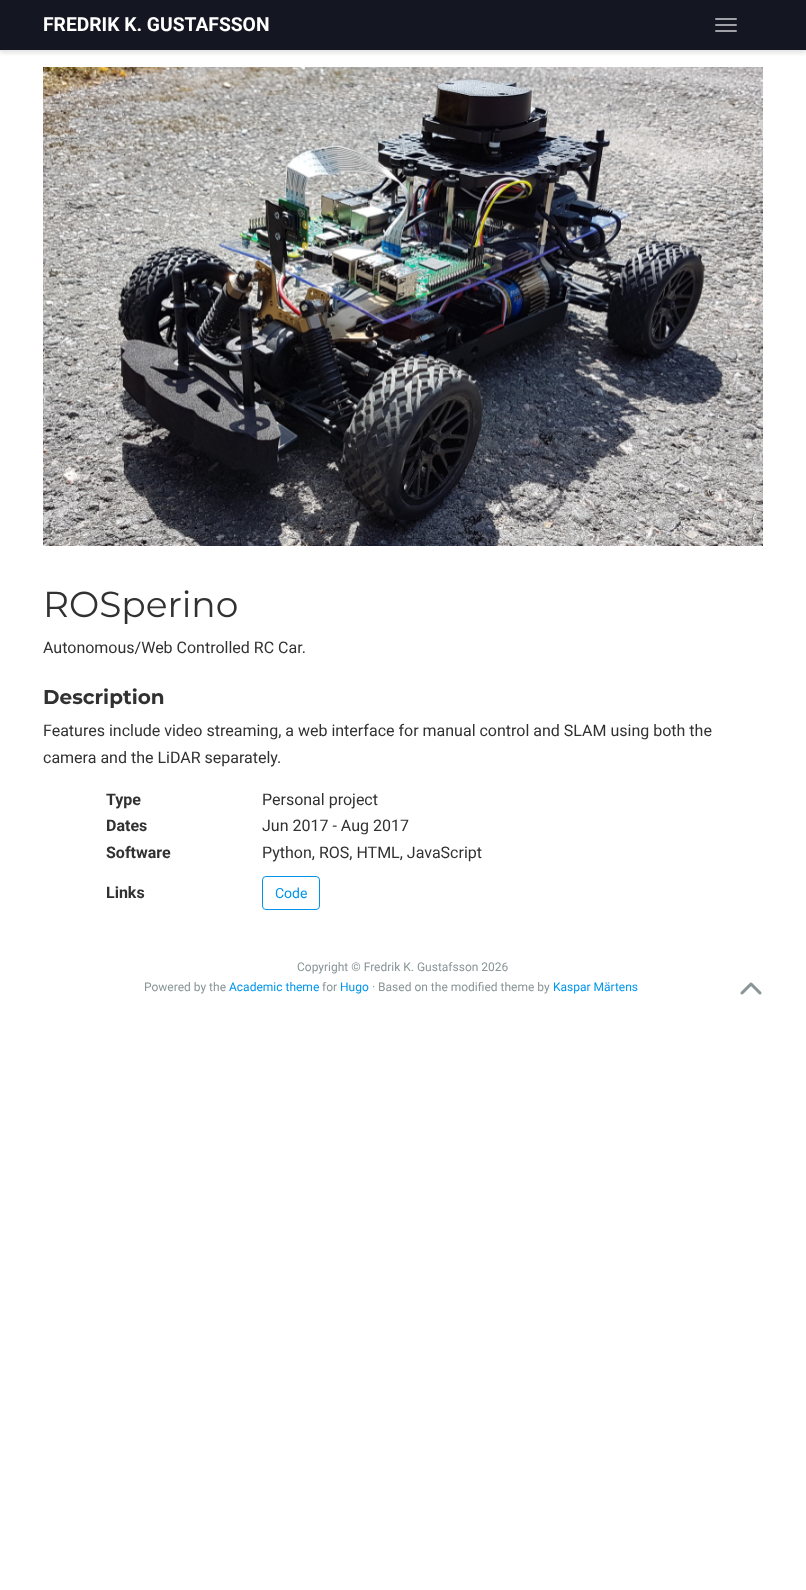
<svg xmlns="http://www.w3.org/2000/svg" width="806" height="1590">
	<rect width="100%" height="100%" fill="#FFFFFF" />
	<rect x="0" y="2" width="806" height="51" fill="#000000" fill-opacity="0.11" filter="blur(2px)" />
	<rect x="0" y="0" width="806" height="50" fill="#141622" />
	<rect x="0" y="50" width="806" height="1" fill="#E7E7E7" />
	<text x="43" y="31" font-family="Roboto" font-size="19.25" font-weight="700" fill="#FFFFFF">FREDRIK K. GUSTAFSSON</text>
	<rect x="715" y="18" width="22" height="2" rx="1" fill="#A1A2A7" />
	<rect x="715" y="24" width="22" height="2" rx="1" fill="#A1A2A7" />
	<rect x="715" y="30" width="22" height="2" rx="1" fill="#A1A2A7" />
	<image x="43" y="67" width="720" height="479" href="assets/img1.png" />
	<text x="43" y="617" font-family="Montserrat" font-size="36" fill="#313131">ROSperino</text>
	<text x="43" y="653" font-family="Roboto" font-size="16" fill="#313131">Autonomous/Web Controlled RC Car.</text>
	<text x="43" y="704" font-family="Montserrat" font-size="20" font-weight="700" fill="#313131">Description</text>
	<g font-family="Roboto" font-size="16" fill="#313131">
		<text x="43" y="736">Features include video streaming, a web interface for manual control and SLAM using both the</text>
		<text x="43" y="763">camera and the LiDAR separately.</text>
	</g>
	<text x="106" y="805" font-family="Roboto" font-size="16" font-weight="700" fill="#313131">Type</text>
	<text x="262" y="805" font-family="Roboto" font-size="16" fill="#313131">Personal project</text>
	<text x="106" y="831" font-family="Roboto" font-size="16" font-weight="700" fill="#313131">Dates</text>
	<text x="262" y="831" font-family="Roboto" font-size="16" fill="#313131">Jun 2017 - Aug 2017</text>
	<text x="106" y="858" font-family="Roboto" font-size="16" font-weight="700" fill="#313131">Software</text>
	<text x="262" y="858" font-family="Roboto" font-size="16" fill="#313131">Python, ROS, HTML, JavaScript</text>
	<text x="106" y="898" font-family="Roboto" font-size="16" font-weight="700" fill="#313131">Links</text>
	<rect x="262.5" y="876.5" width="57" height="33" rx="3.5" fill="none" stroke="#0095EB" />
	<text x="275" y="898" font-family="Roboto" font-size="14" fill="#0095EB">Code</text>
	<g font-family="Roboto" font-size="12" fill="#899596">
		<text x="297" y="971">Copyright © Fredrik K. Gustafsson 2026</text>
		<text x="144" y="991">Powered by the</text>
	</g>
	<text x="229" y="991" font-family="Roboto" font-size="12" fill="#0095EB">Academic theme</text>
	<text x="322" y="991" font-family="Roboto" font-size="12" fill="#899596">for</text>
	<text x="340" y="991" font-family="Roboto" font-size="12" fill="#0095EB">Hugo</text>
	<text x="372" y="991" font-family="Roboto" font-size="12" fill="#899596">· Based on the modified theme by</text>
	<text x="553" y="991" font-family="Roboto" font-size="12" fill="#0095EB">Kaspar Märtens</text>
	<image x="740" y="982" width="22" height="13" href="assets/img2.png" />
</svg>
